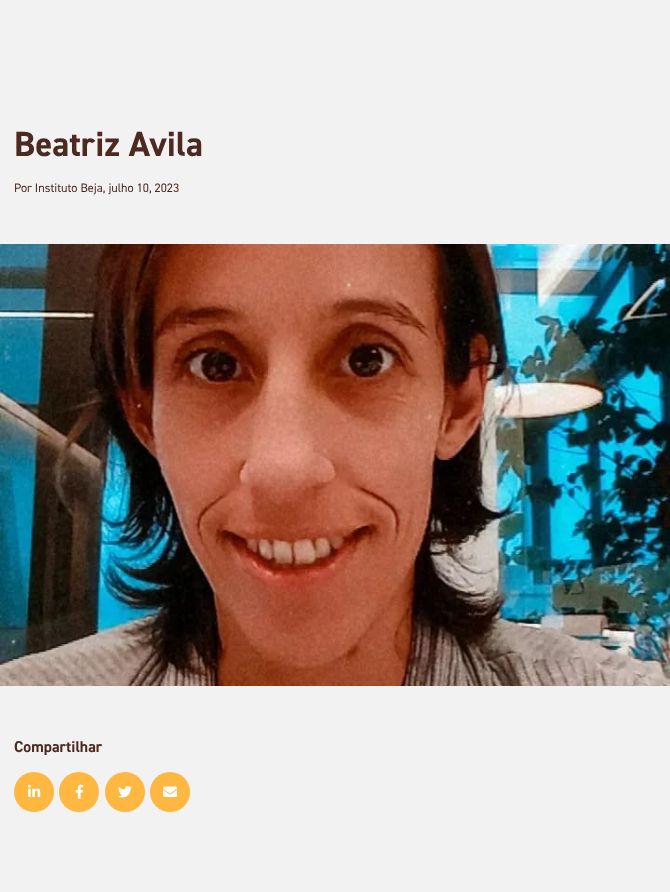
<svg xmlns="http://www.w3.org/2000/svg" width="670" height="892">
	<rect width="100%" height="100%" fill="#F2F2F2" />
	<text x="14" y="156" font-family="'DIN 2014'" font-size="35" font-weight="700" fill="#4D2A21">Beatriz Avila</text>
	<text x="14" y="192" font-family="'DIN 2014'" font-size="12.25" fill="#4D2A21">Por Instituto Beja, julho 10, 2023</text>
	<image x="0" y="244" width="670" height="442" href="assets/img1.png" />
	<text x="14" y="752" font-family="'DIN 2014'" font-size="15.75" font-weight="700" fill="#4D2A21">Compartilhar</text>
	<circle cx="34" cy="792" r="20" fill="#FEB740" />
	<image x="28" y="784" width="13" height="13" href="assets/img2.png" />
	<circle cx="79" cy="792" r="20" fill="#FEB740" />
	<image x="75" y="784" width="9" height="15" href="assets/img3.png" />
	<circle cx="125" cy="792" r="20" fill="#FEB740" />
	<image x="118" y="786" width="14" height="12" href="assets/img4.png" />
	<circle cx="170" cy="792" r="20" fill="#FEB740" />
	<image x="163" y="786" width="14" height="11" href="assets/img5.png" />
</svg>
